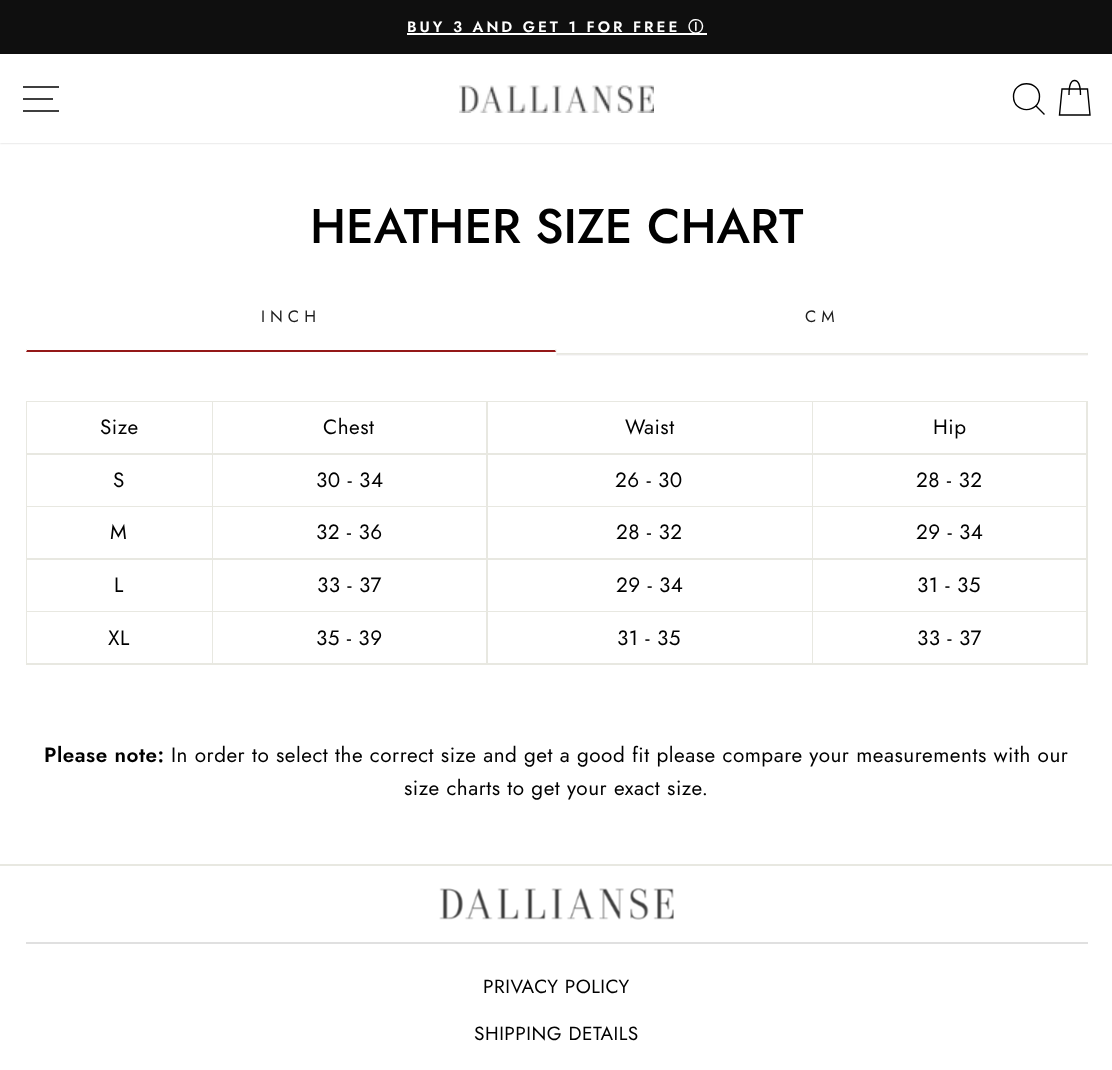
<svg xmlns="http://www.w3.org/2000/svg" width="1112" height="1070">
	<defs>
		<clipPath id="clip1"><rect x="26" y="296" width="1062" height="420" /></clipPath>
	</defs>
	<rect width="100%" height="100%" fill="#FFFFFF" />
	<rect x="0" y="0" width="1112" height="54" fill="#0F0F0F" />
	<text x="407" y="32" font-family="Jost" font-size="15.2" font-weight="600" letter-spacing="3" fill="#FFFFFF">BUY 3 AND GET 1 FOR FREE</text>
	<rect x="407" y="33" width="300" height="2" fill="#FFFFFF" />
	<text x="688" y="32" font-family="WenQuanYi Zen Hei" font-size="15.2" font-weight="700" letter-spacing="3" fill="#FFFFFF">Ⓘ</text>
	<rect x="0" y="54" width="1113" height="89" fill="#000000" fill-opacity="0.2" filter="blur(1px)" />
	<rect x="0" y="54" width="1112" height="89" fill="#FFFFFF" />
	<path d="M23 87H59M23 99H53M23 111H59" fill="none" stroke="#000000" stroke-width="1.4" />
	<image x="459" y="85" width="195" height="28" href="assets/img1.png" />
	<path d="M1039.5 96.5C1039.5 114 1013.5 114 1013.5 96.5C1013.5 79.5 1039.5 79.5 1039.5 96.5ZM1044.5 114.5L1036 106" fill="none" stroke="#000000" stroke-width="1.4" />
	<path d="M1069 95C1069 83.5 1071.5 80.5 1074.5 80.5C1078 80.5 1080.5 83.5 1080.5 95M1062 89H1087.5L1090 115H1059.5Z" fill="none" stroke="#000000" stroke-width="1.4" />
	<text x="310" y="243" font-family="Jost" font-size="48.5" font-weight="500" fill="#000000">HEATHER SIZE CHART</text>
	<text x="261" y="322" font-family="Jost" font-size="16.5" letter-spacing="5" fill="#1D1D1D">INCH</text>
	<path d="M556.5 349.5V352.5L555 349.5Z" fill="#E8E8E1" />
	<path d="M556 352H26L27 350H555Z" fill="#941818" />
	<g clip-path="url(#clip1)">
		<path d="M25.5 352.5V349.5H27Z" fill="#E8E8E1" />
	</g>
	<rect x="26" y="401" width="1062" height="264" fill="#E8E8E1" />
	<rect x="27" y="402" width="185" height="51" fill="#FFFFFF" />
	<text x="100" y="434" font-family="Jost" font-size="20.7" letter-spacing="0.52" fill="#000000">Size</text>
	<rect x="213" y="402" width="273" height="51" fill="#FFFFFF" />
	<text x="323" y="434" font-family="Jost" font-size="20.7" letter-spacing="0.52" fill="#000000">Chest</text>
	<rect x="488" y="402" width="324" height="51" fill="#FFFFFF" />
	<text x="625" y="434" font-family="Jost" font-size="20.7" letter-spacing="0.52" fill="#000000">Waist</text>
	<rect x="813" y="402" width="273" height="51" fill="#FFFFFF" />
	<text x="933" y="434" font-family="Jost" font-size="20.7" letter-spacing="0.52" fill="#000000">Hip</text>
	<rect x="27" y="455" width="185" height="51" fill="#FFFFFF" />
	<text x="113" y="487" font-family="Jost" font-size="20.7" letter-spacing="0.52" fill="#000000">S</text>
	<rect x="213" y="455" width="273" height="51" fill="#FFFFFF" />
	<text x="316" y="487" font-family="Jost" font-size="20.7" letter-spacing="0.52" fill="#000000">30 - 34</text>
	<rect x="488" y="455" width="324" height="51" fill="#FFFFFF" />
	<text x="615" y="487" font-family="Jost" font-size="20.7" letter-spacing="0.52" fill="#000000">26 - 30</text>
	<rect x="813" y="455" width="273" height="51" fill="#FFFFFF" />
	<text x="916" y="487" font-family="Jost" font-size="20.7" letter-spacing="0.52" fill="#000000">28 - 32</text>
	<rect x="27" y="507" width="185" height="51" fill="#FFFFFF" />
	<text x="110" y="539" font-family="Jost" font-size="20.7" letter-spacing="0.52" fill="#000000">M</text>
	<rect x="213" y="507" width="273" height="51" fill="#FFFFFF" />
	<text x="316" y="539" font-family="Jost" font-size="20.7" letter-spacing="0.52" fill="#000000">32 - 36</text>
	<rect x="488" y="507" width="324" height="51" fill="#FFFFFF" />
	<text x="616" y="539" font-family="Jost" font-size="20.7" letter-spacing="0.52" fill="#000000">28 - 32</text>
	<rect x="813" y="507" width="273" height="51" fill="#FFFFFF" />
	<text x="916" y="539" font-family="Jost" font-size="20.7" letter-spacing="0.52" fill="#000000">29 - 34</text>
	<rect x="27" y="560" width="185" height="51" fill="#FFFFFF" />
	<text x="114" y="592" font-family="Jost" font-size="20.7" letter-spacing="0.52" fill="#000000">L</text>
	<rect x="213" y="560" width="273" height="51" fill="#FFFFFF" />
	<text x="317" y="592" font-family="Jost" font-size="20.7" letter-spacing="0.52" fill="#000000">33 - 37</text>
	<rect x="488" y="560" width="324" height="51" fill="#FFFFFF" />
	<text x="616" y="592" font-family="Jost" font-size="20.7" letter-spacing="0.52" fill="#000000">29 - 34</text>
	<rect x="813" y="560" width="273" height="51" fill="#FFFFFF" />
	<text x="917" y="592" font-family="Jost" font-size="20.7" letter-spacing="0.52" fill="#000000">31 - 35</text>
	<rect x="27" y="612" width="185" height="51" fill="#FFFFFF" />
	<text x="108" y="645" font-family="Jost" font-size="20.7" letter-spacing="0.52" fill="#000000">XL</text>
	<rect x="213" y="612" width="273" height="51" fill="#FFFFFF" />
	<text x="316" y="645" font-family="Jost" font-size="20.7" letter-spacing="0.52" fill="#000000">35 - 39</text>
	<rect x="488" y="612" width="324" height="51" fill="#FFFFFF" />
	<text x="617" y="645" font-family="Jost" font-size="20.7" letter-spacing="0.52" fill="#000000">31 - 35</text>
	<rect x="813" y="612" width="273" height="51" fill="#FFFFFF" />
	<text x="917" y="645" font-family="Jost" font-size="20.7" letter-spacing="0.52" fill="#000000">33 - 37</text>
	<text x="805" y="322" font-family="Jost" font-size="16.5" letter-spacing="5" fill="#1D1D1D">CM</text>
	<rect x="557" y="353" width="531" height="2" fill="#E8E8E1" />
	<path d="M1087.5 352.5V355.5L1086 354Z" fill="#E8E8E1" />
	<path d="M1088 356H556L558 354H1086Z" fill="#EFEDEF" fill-opacity="0.5" />
	<path d="M556.5 355.5V352.5L558 354Z" fill="#E8E8E1" />
	<text x="44" y="762" font-family="Jost" font-size="20.7" font-weight="600" letter-spacing="0.52" fill="#000000">Please note:</text>
	<g font-family="Jost" font-size="20.7" letter-spacing="0.52" fill="#000000">
		<text x="171" y="762">In order to select the correct size and get a good fit please compare your measurements with our</text>
		<text x="404" y="795">size charts to get your exact size.</text>
	</g>
	<rect x="0" y="864" width="1112" height="2" fill="#E8E8E1" />
	<image x="439" y="888" width="235" height="32" href="assets/img2.png" />
	<rect x="26" y="942" width="1062" height="2" fill="#E0E0E0" />
	<g font-family="Jost" font-size="19.1" letter-spacing="0.52" fill="#000000">
		<text x="483" y="993">PRIVACY POLICY</text>
		<text x="474" y="1040">SHIPPING DETAILS</text>
	</g>
</svg>
